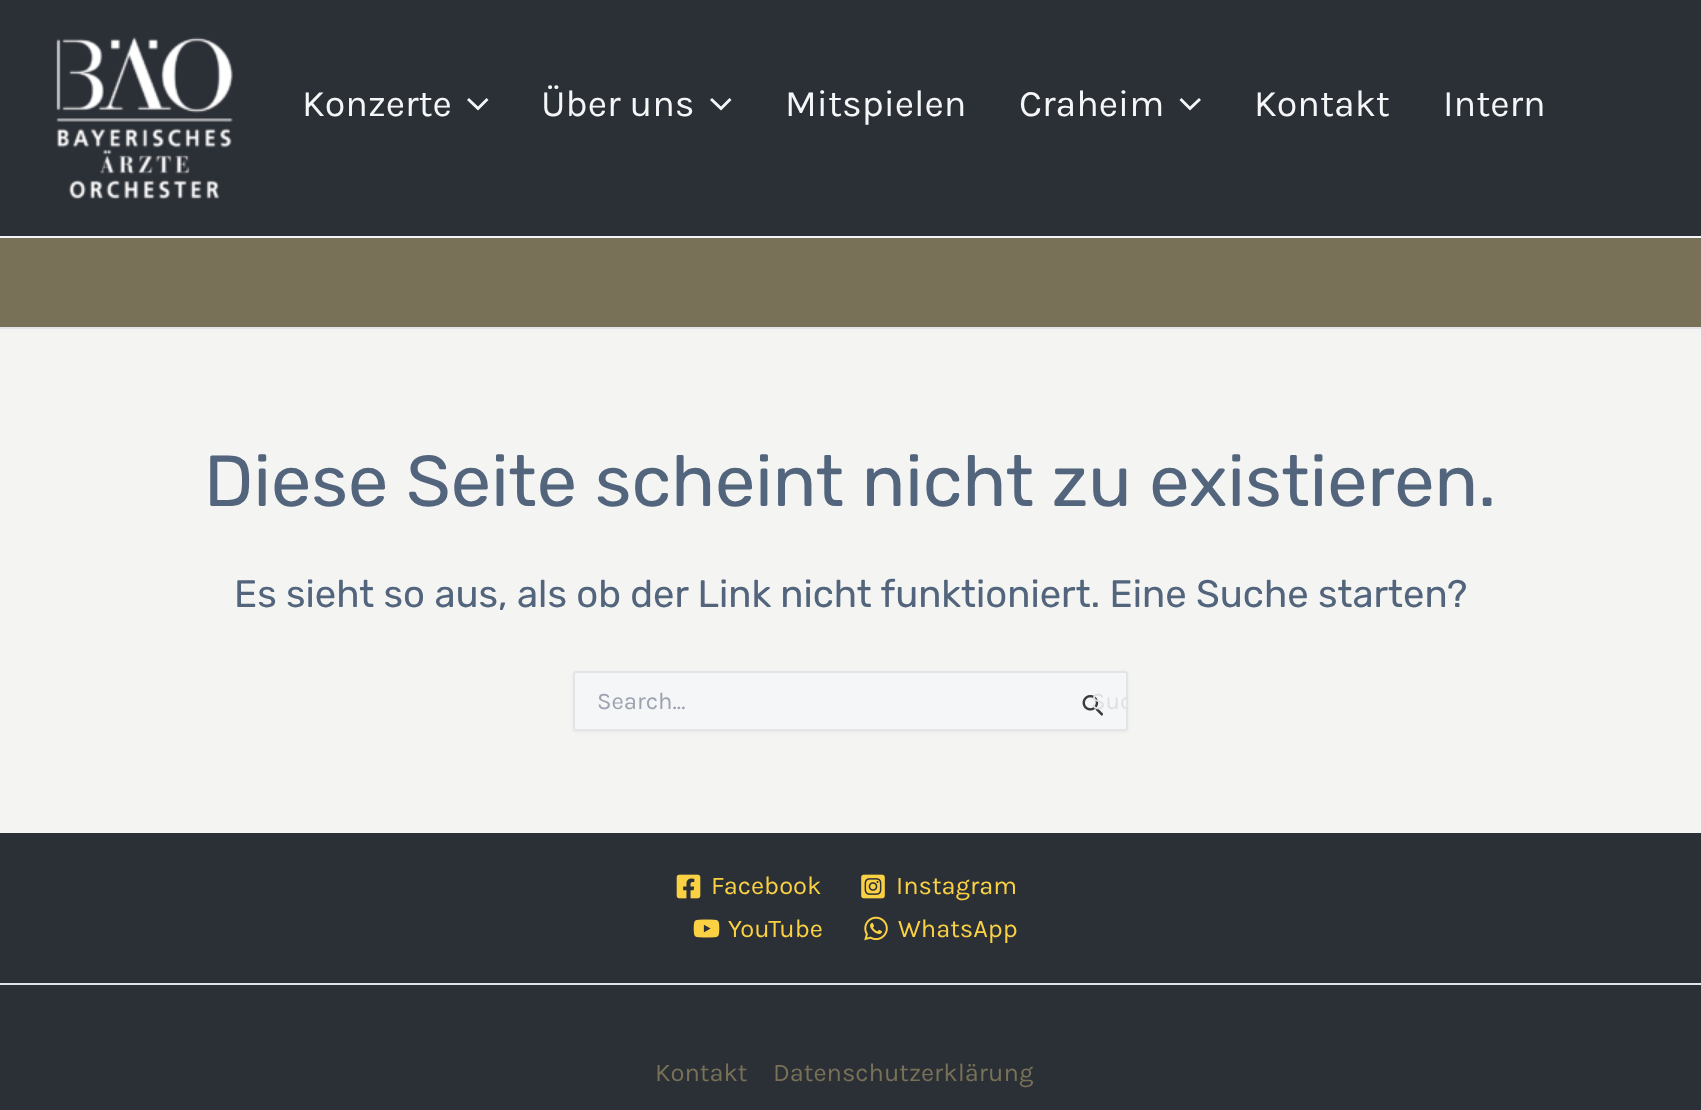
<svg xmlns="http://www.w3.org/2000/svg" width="1701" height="1110">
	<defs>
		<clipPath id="clip1"><rect x="1061" y="671" width="67" height="63" rx="3" /></clipPath>
	</defs>
	<rect width="100%" height="100%" fill="#F4F4F2" />
	<rect x="0" y="0" width="1701" height="236" fill="#2B2F36" />
	<rect x="0" y="236" width="1701" height="2" fill="#F5F6F7" />
	<image x="56" y="37" width="177" height="163" href="assets/img1.png" />
	<text x="302" y="116" font-family="Karla" font-size="37.5" fill="#F5F6F7">Konzerte</text>
	<path d="M467 100L478 110.5L488.5 100L486.5 98L478 106.5L469 98Z" fill="#F5F6F7" />
	<text x="541" y="116" font-family="Karla" font-size="37.5" fill="#F5F6F7">Über uns</text>
	<path d="M710 100L721 110.5L731.5 100L729.5 98L721 106.5L712 98Z" fill="#F5F6F7" />
	<g font-family="Karla" font-size="37.5" fill="#F5F6F7">
		<text x="785" y="116">Mitspielen</text>
		<text x="1019" y="116">Craheim</text>
	</g>
	<path d="M1179.5 100L1190 110.5L1201 100L1199 98L1190 106.5L1181.5 98Z" fill="#F5F6F7" />
	<g font-family="Karla" font-size="37.5" fill="#F5F6F7">
		<text x="1254" y="116">Kontakt</text>
		<text x="1443" y="116">Intern</text>
	</g>
	<rect x="0" y="238" width="1701" height="89" fill="#787157" />
	<rect x="0" y="327" width="1701" height="2" fill="#E2E4E7" />
	<text x="204" y="506" font-family="Rubik" font-size="72" fill="#52657D">Diese Seite scheint nicht zu existieren.</text>
	<text x="234" y="607" font-family="Rubik" font-size="38.25" fill="#52657D">Es sieht so aus, als ob der Link nicht funktioniert. Eine Suche starten?</text>
	<rect x="573" y="672" width="555" height="60" rx="3" fill="#000000" fill-opacity="0.05" filter="blur(1.5px)" />
	<rect x="574" y="672" width="553" height="58" rx="2" fill="#F5F6F7" stroke="#E2E4E7" stroke-width="2" />
	<text x="597" y="709" font-family="Karla" font-size="24" fill="#9CA3AF">Search...</text>
	<image x="1082" y="695" width="21" height="21" href="assets/img2.png" />
	<g clip-path="url(#clip1)">
		<text x="1091" y="709" font-family="Karla" font-size="24" fill="#DFE0E1">Suc</text>
	</g>
	<rect x="0" y="833" width="1701" height="150" fill="#2B2F36" />
	<image x="676" y="874" width="25" height="25" href="assets/img3.png" />
	<text x="711" y="894" font-family="Karla" font-size="25.5" fill="#FAD143">Facebook</text>
	<image x="861" y="874" width="24" height="25" href="assets/img4.png" />
	<text x="896" y="894" font-family="Karla" font-size="25.5" fill="#FAD143">Instagram</text>
	<image x="693" y="919" width="27" height="19" href="assets/img5.png" />
	<text x="728" y="937" font-family="Karla" font-size="25.5" fill="#FAD143">YouTube</text>
	<image x="864" y="916" width="24" height="25" href="assets/img6.png" />
	<text x="898" y="937" font-family="Karla" font-size="25.5" fill="#FAD143">WhatsApp</text>
	<rect x="0" y="985" width="1701" height="125" fill="#2B2F36" />
	<rect x="0" y="983" width="1701" height="2" fill="#E2E4E7" />
	<g font-family="Karla" font-size="25.5" fill="#787157">
		<text x="655" y="1081">Kontakt</text>
		<text x="773" y="1081">Datenschutzerklärung</text>
	</g>
</svg>
